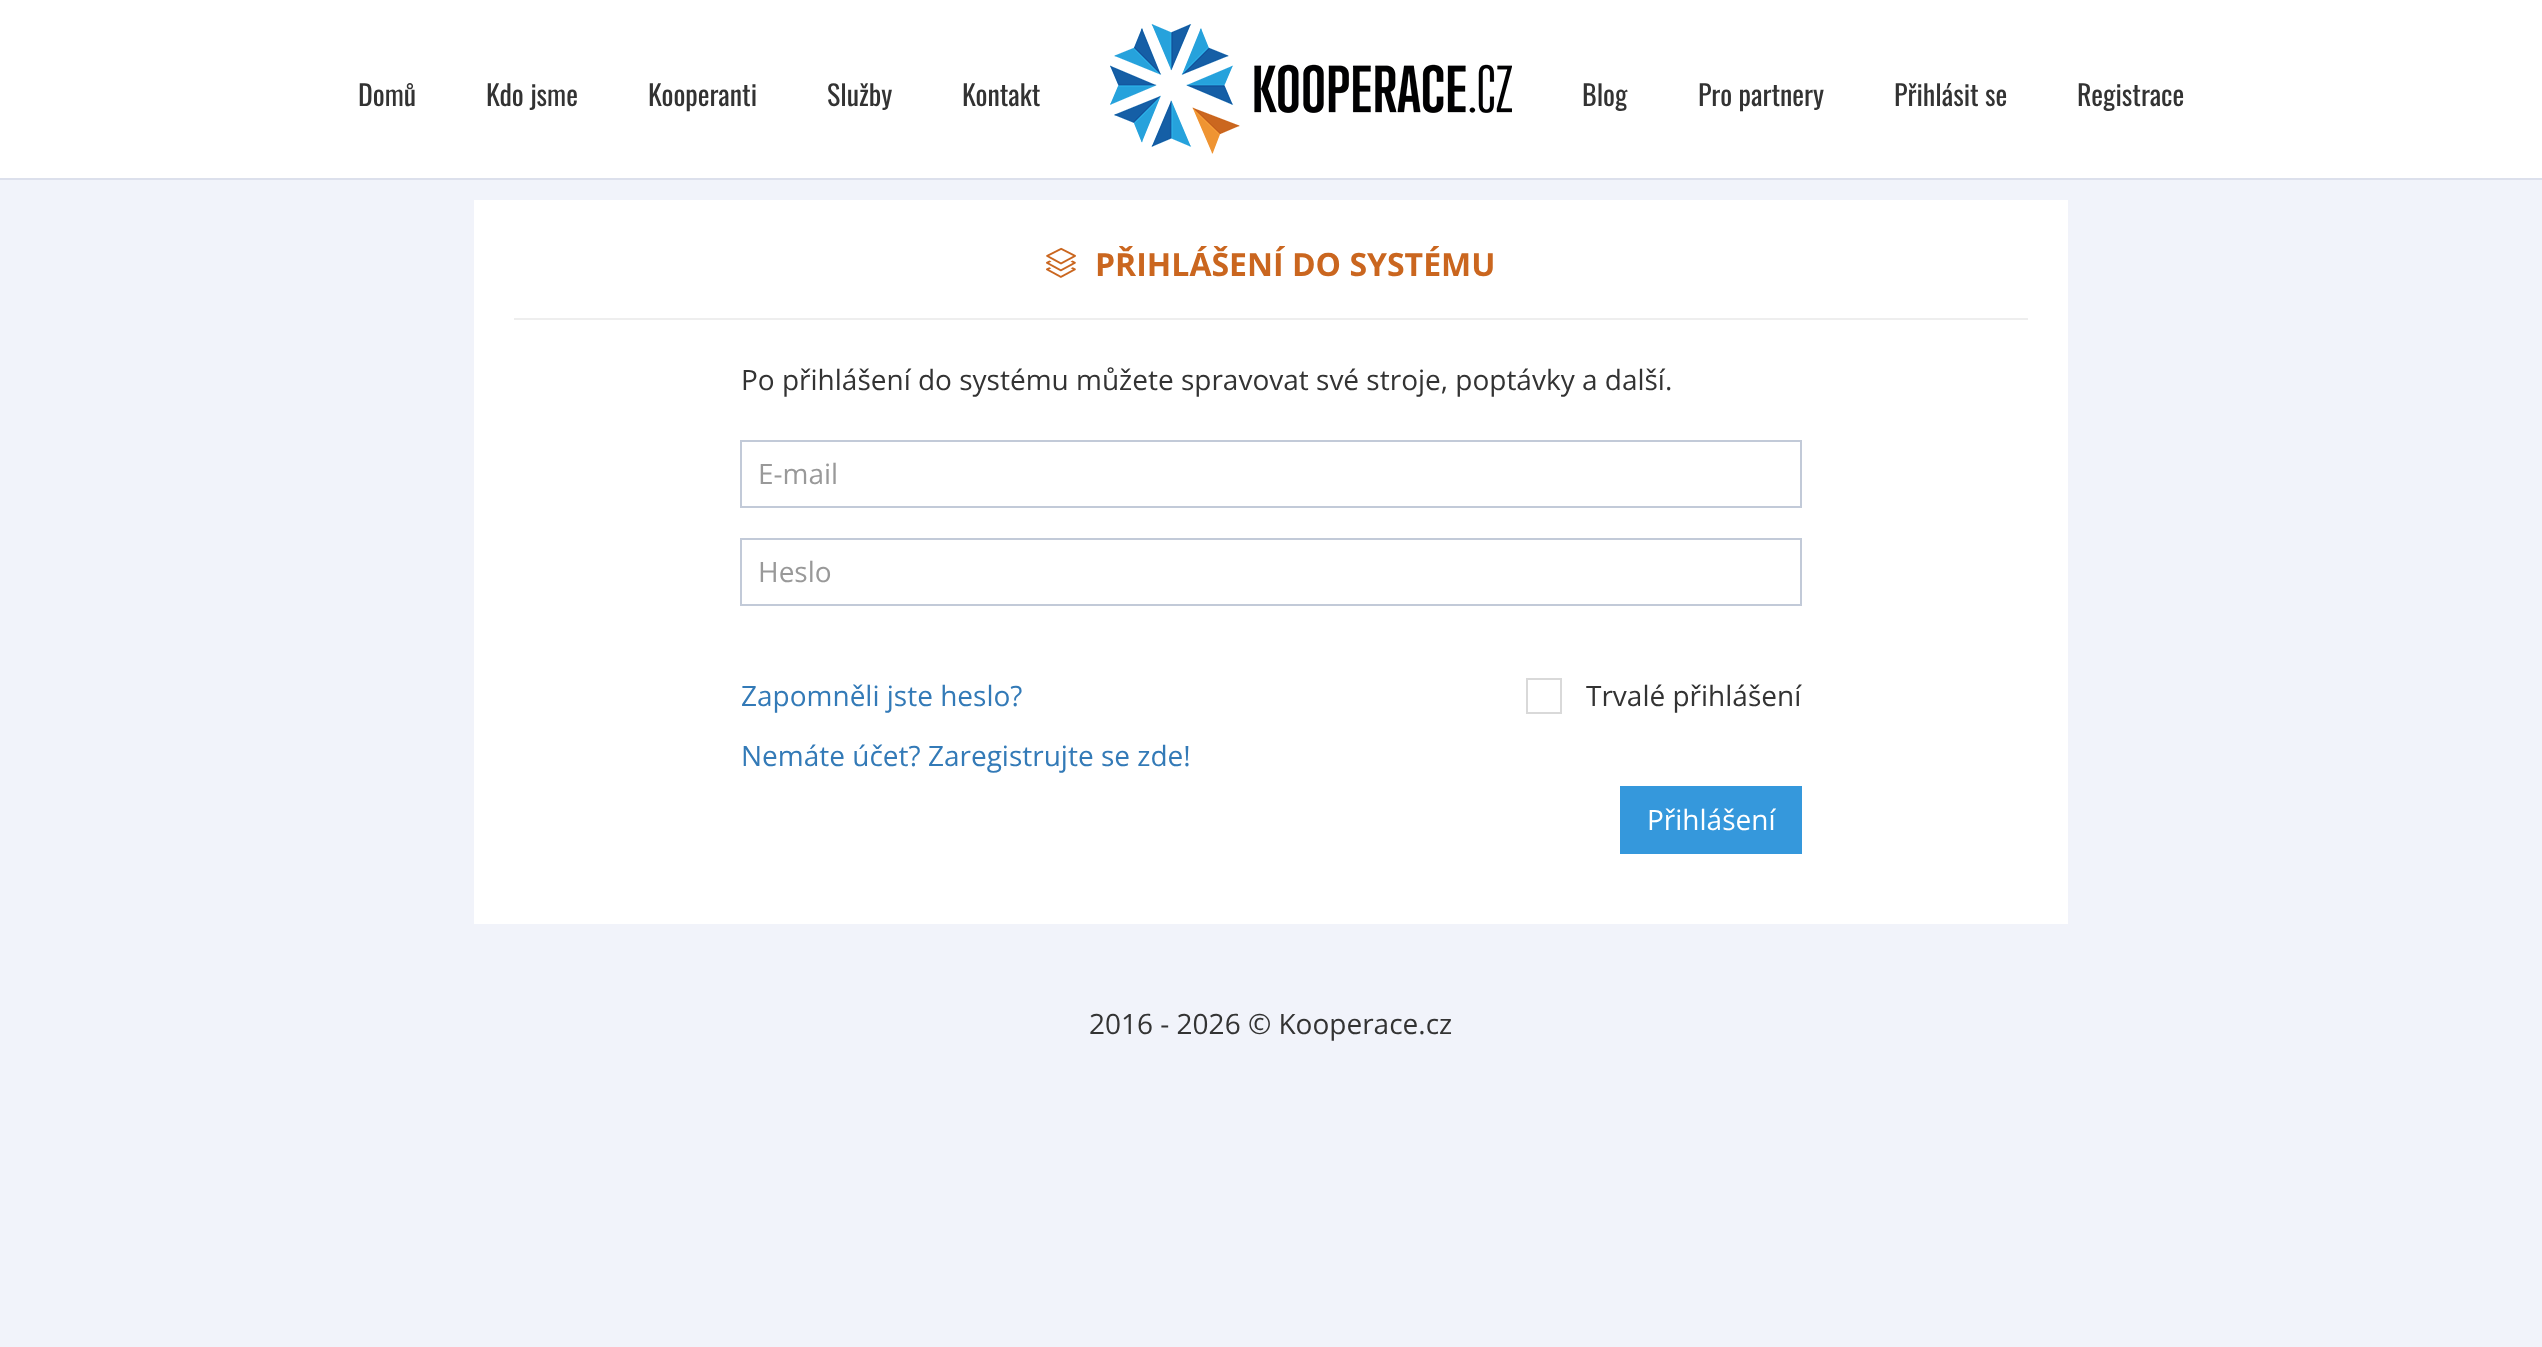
<svg xmlns="http://www.w3.org/2000/svg" width="2542" height="1347">
	<rect width="100%" height="100%" fill="#F1F3FA" />
	<rect x="0" y="0" width="2542" height="178" fill="#FFFFFF" />
	<rect x="0" y="178" width="2542" height="2" fill="#DCE0EC" />
	<g font-family="Oswald" font-size="28" fill="#333333">
		<text x="358" y="106">Domů</text>
		<text x="486" y="106">Kdo jsme</text>
		<text x="648" y="106">Kooperanti</text>
		<text x="827" y="106">Služby</text>
		<text x="962" y="106">Kontakt</text>
	</g>
	<image x="1110" y="24" width="402" height="130" href="assets/img1.png" />
	<g font-family="Oswald" font-size="28" fill="#333333">
		<text x="1582" y="106">Blog</text>
		<text x="1698" y="106">Pro partnery</text>
		<text x="1894" y="106">Přihlásit se</text>
		<text x="2077" y="106">Registrace</text>
	</g>
	<rect x="474" y="200" width="1594" height="724" fill="#FFFFFF" />
	<rect x="514" y="318" width="1514" height="2" fill="#EEEEEE" />
	<image x="1046" y="247" width="30" height="31" href="assets/img2.png" />
	<text x="1095" y="276" font-family="Open Sans" font-size="32" font-weight="700" fill="#CA661F">PŘIHLÁŠENÍ DO SYSTÉMU</text>
	<text x="741" y="390" font-family="Open Sans" font-size="28" fill="#333333">Po přihlášení do systému můžete spravovat své stroje, poptávky a další.</text>
	<rect x="741" y="441" width="1060" height="66" fill="none" stroke="#C2CAD8" stroke-width="2" />
	<text x="758" y="484" font-family="Open Sans" font-size="28" fill="#999999">E-mail</text>
	<rect x="741" y="539" width="1060" height="66" fill="none" stroke="#C2CAD8" stroke-width="2" />
	<text x="758" y="582" font-family="Open Sans" font-size="28" fill="#999999">Heslo</text>
	<g font-family="Open Sans" font-size="28" fill="#337AB7">
		<text x="741" y="706">Zapomněli jste heslo?</text>
		<text x="741" y="766">Nemáte účet? Zaregistrujte se zde!</text>
	</g>
	<rect x="1527" y="679" width="34" height="34" fill="none" stroke="#D9D9D9" stroke-width="2" />
	<text x="1586" y="706" font-family="Open Sans" font-size="28" fill="#333333">Trvalé přihlášení</text>
	<rect x="1620" y="786" width="182" height="68" fill="#3598DC" />
	<text x="1647" y="830" font-family="Open Sans" font-size="28" fill="#FFFFFF">Přihlášení</text>
	<text x="1089" y="1034" font-family="Open Sans" font-size="28" fill="#333333">2016 - 2026 © Kooperace.cz</text>
</svg>
